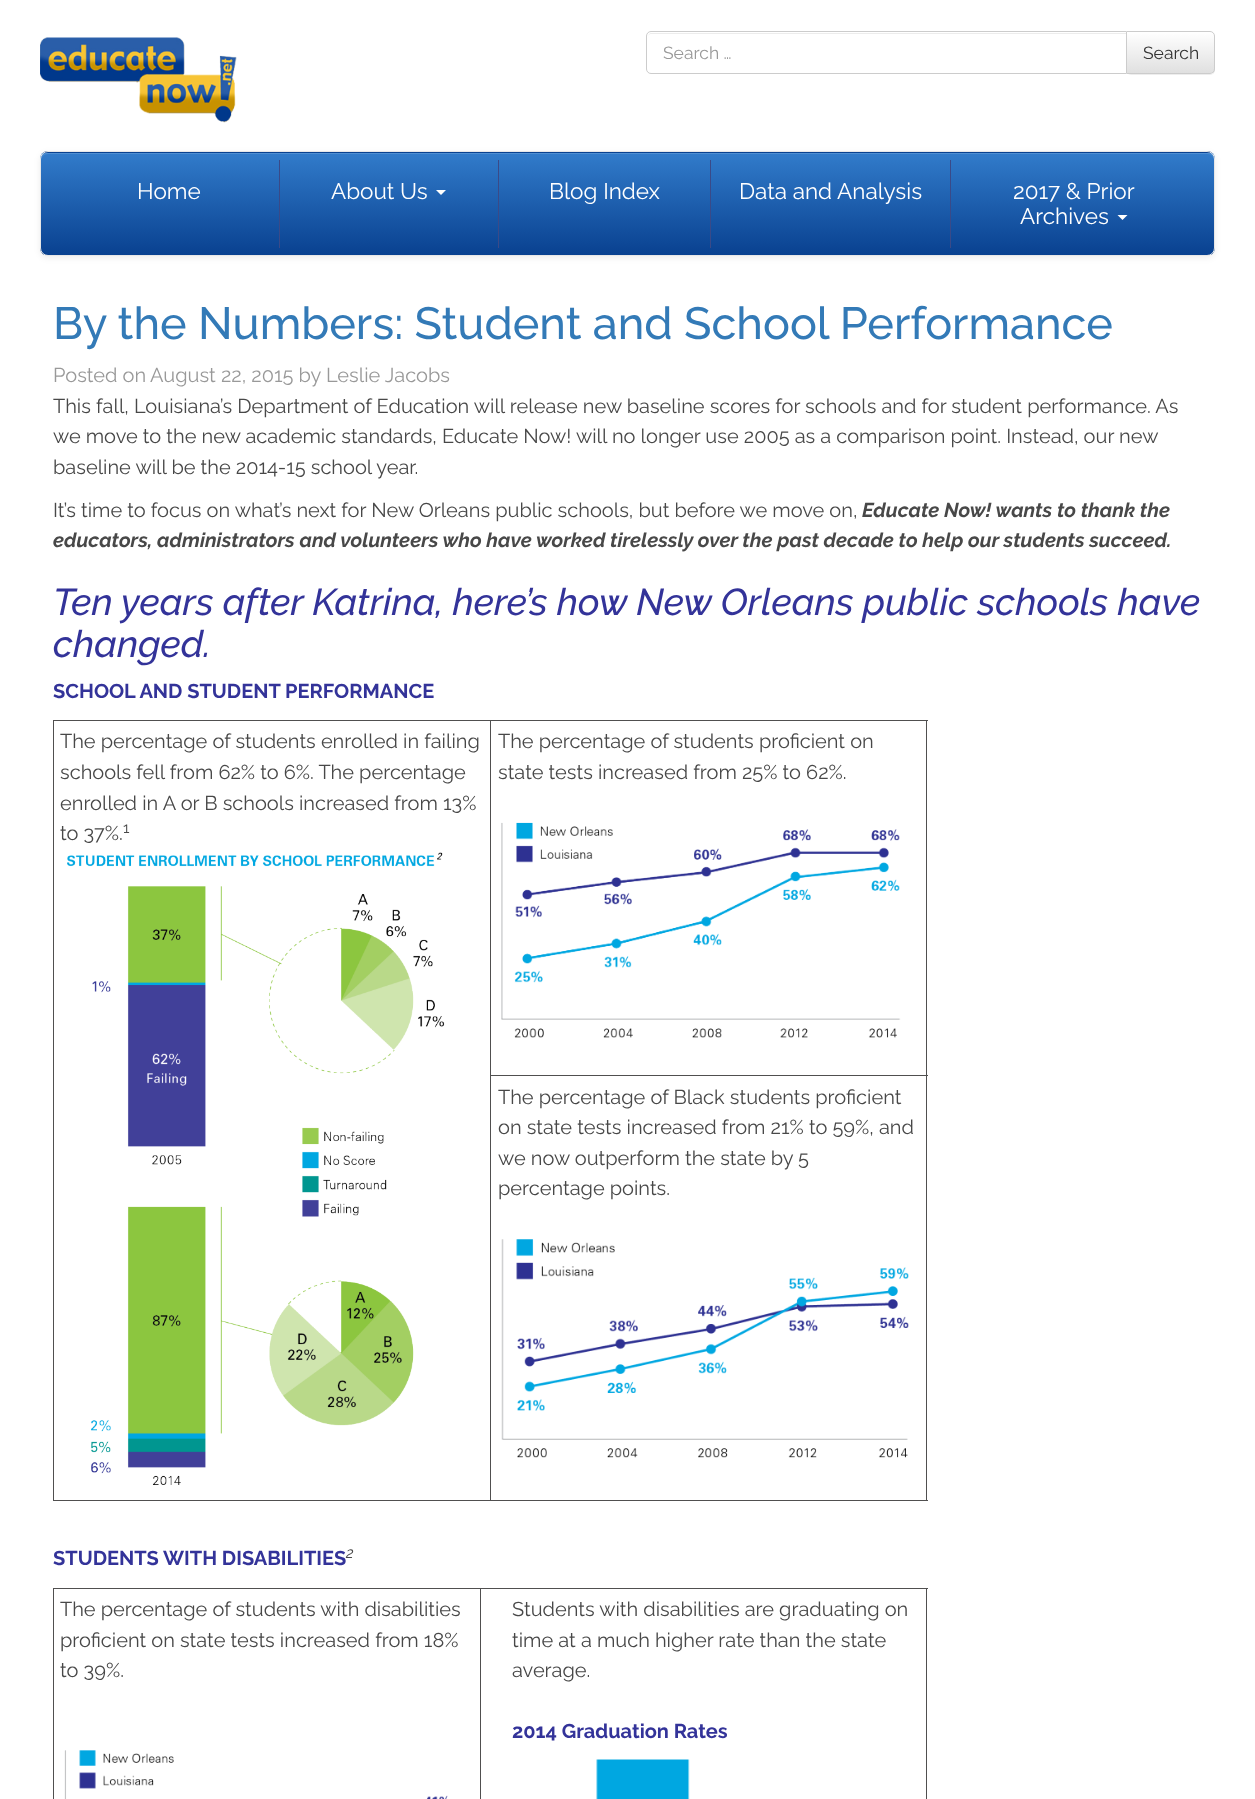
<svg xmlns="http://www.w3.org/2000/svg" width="1255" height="1799">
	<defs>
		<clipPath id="clip1"><path d="M1126 31H1210C1213 31 1215 33 1215 36V69C1215 72 1213 74 1210 74H1126Z" /></clipPath>
		<linearGradient id="g1" gradientUnits="userSpaceOnUse" x1="1171" y1="32" x2="1171" y2="73"><stop offset="0" stop-color="#FFFFFF" /><stop offset="1" stop-color="#E0E0E0" /></linearGradient>
		<clipPath id="clip2"><rect x="40" y="151" width="1175" height="105" rx="8" /></clipPath>
		<linearGradient id="g2" gradientUnits="userSpaceOnUse" x1="628" y1="50" x2="628" y2="153"><stop offset="0" stop-color="#327CCB" /><stop offset="1" stop-color="#094190" /></linearGradient>
		<linearGradient id="g3" gradientUnits="userSpaceOnUse" x1="628" y1="152" x2="628" y2="255"><stop offset="0" stop-color="#327CCB" /><stop offset="1" stop-color="#094190" /></linearGradient>
	</defs>
	<rect width="100%" height="100%" fill="#FFFFFF" />
	<image x="40" y="37" width="197" height="86" href="assets/img1.png" />
	<path d="M651 34H1126V33H652C649 33 648 35 648 38C648 35 649 34 651 34Z" fill="#ECECEC" />
	<path d="M651 31.5H1127.5V73.5H651C648.5 73.5 646.5 71.5 646.5 69V36C646.5 33.5 648.5 31.5 651 31.5Z" fill="none" stroke="#CCCCCC" />
	<text x="663" y="59" font-family="Raleway" font-size="17.5" fill="#999999">Search …</text>
	<rect x="1126" y="33" width="89" height="42" rx="5" fill="#000000" fill-opacity="0.07" filter="blur(0.5px)" />
	<path d="M1126 31H1210C1213 31 1215 33 1215 36V69C1215 72 1213 74 1210 74H1126Z" fill="#FFFFFF" />
	<g clip-path="url(#clip1)">
		<rect x="1127" y="33" width="88" height="40" fill="url(#g1)" />
	</g>
	<path d="M1126.5 31.5H1210C1212.5 31.5 1214.5 33.5 1214.5 36V69C1214.5 71.5 1212.5 73.5 1210 73.5H1126.5Z" fill="none" stroke="#CCCCCC" />
	<text x="1143" y="59" font-family="Raleway" font-size="17.5" fill="#333333">Search</text>
	<rect x="40" y="153" width="1175" height="105" rx="8" fill="#000000" fill-opacity="0.07" filter="blur(3px)" />
	<g clip-path="url(#clip2)">
		<rect x="40" y="151" width="1175" height="2" fill="url(#g2)" />
		<rect x="40" y="153" width="1175" height="102" fill="url(#g3)" />
	</g>
	<path d="M48 154H1208C1211 154 1214 157 1214 160C1214 156 1212 153 1208 153H47C43 153 41 156 41 160C41 157 44 154 48 154Z" fill="#508FD2" />
	<rect x="40.5" y="151.5" width="1174" height="104" rx="7.5" fill="none" stroke="#E7E7E7" />
	<rect x="279" y="160" width="1" height="88" fill="#3A4A88" />
	<text x="137" y="199" font-family="Raleway" font-size="22.5" fill="#FFFFFF">Home</text>
	<rect x="498" y="160" width="1" height="88" fill="#3A4A88" />
	<text x="331" y="199" font-family="Raleway" font-size="22.5" fill="#FFFFFF">About Us</text>
	<path d="M436 190H446L441 195Z" fill="#FFFFFF" />
	<rect x="710" y="160" width="1" height="88" fill="#3A4A88" />
	<text x="549" y="199" font-family="Raleway" font-size="22.5" fill="#FFFFFF">Blog Index</text>
	<rect x="950" y="160" width="1" height="88" fill="#3A4A88" />
	<g font-family="Raleway" font-size="22.5" fill="#FFFFFF">
		<text x="739" y="199">Data and Analysis</text>
		<text x="1013" y="199">2017 &amp; Prior</text>
		<text x="1020" y="224">Archives</text>
	</g>
	<path d="M1117.5 215H1127.5L1122.5 220Z" fill="#FFFFFF" />
	<text x="53" y="339" font-family="Raleway" font-size="45" font-weight="500" fill="#337AB7">By the Numbers: Student and School Performance</text>
	<g font-family="Raleway" font-size="20" fill="#999999">
		<text x="53" y="382">Posted on</text>
		<text x="150" y="382">August 22, 2015 by Leslie Jacobs</text>
	</g>
	<g font-family="Raleway" font-size="20" fill="#484848">
		<text x="53" y="413">This fall, Louisiana’s Department of Education will release new baseline scores for schools and for student performance. As</text>
		<text x="53" y="443">we move to the new academic standards, Educate Now! will no longer use 2005 as a comparison point. Instead, our new</text>
		<text x="53" y="474">baseline will be the 2014-15 school year.</text>
		<text x="53" y="517">It’s time to focus on what’s next for New Orleans public schools, but before we move on,</text>
	</g>
	<g font-family="Raleway" font-size="20" font-weight="700" font-style="italic" fill="#484848">
		<text x="862" y="517">Educate Now! wants to thank the</text>
		<text x="53" y="547">educators, administrators and volunteers who have worked tirelessly over the past decade to help our students succeed.</text>
	</g>
	<g font-family="Raleway" font-size="37.5" font-weight="500" font-style="italic" fill="#333399">
		<text x="53" y="615">Ten years after Katrina, here’s how New Orleans public schools have</text>
		<text x="53" y="657">changed.</text>
	</g>
	<text x="53" y="698" font-family="Raleway" font-size="20" font-weight="700" fill="#333399">SCHOOL AND STUDENT PERFORMANCE</text>
	<rect x="490" y="720" width="438" height="1" fill="#504F4F" />
	<rect x="490" y="1075" width="438" height="1" fill="#504F4F" />
	<rect x="926" y="1075" width="1" height="426" fill="#504F4F" />
	<rect x="490" y="1500" width="438" height="1" fill="#504F4F" />
	<rect x="490" y="1075" width="1" height="426" fill="#504F4F" />
	<rect x="490" y="720" width="1" height="356" fill="#504F4F" />
	<rect x="53" y="720" width="438" height="1" fill="#504F4F" />
	<rect x="53" y="1500" width="438" height="1" fill="#504F4F" />
	<rect x="53" y="720" width="1" height="781" fill="#504F4F" />
	<g font-family="Raleway" font-size="20" fill="#484848">
		<text x="60" y="748">The percentage of students enrolled in failing</text>
		<text x="60" y="779">schools fell from 62% to 6%. The percentage</text>
		<text x="60" y="810">enrolled in A or B schools increased from 13%</text>
		<text x="60" y="840">to 37%.</text>
	</g>
	<text x="123" y="833" font-family="Raleway" font-size="15" fill="#484848">1</text>
	<image x="67" y="852" width="378" height="633" href="assets/img2.png" />
	<rect x="926" y="720" width="1" height="356" fill="#504F4F" />
	<g font-family="Raleway" font-size="20" fill="#484848">
		<text x="498" y="748">The percentage of students proficient on</text>
		<text x="498" y="779">state tests increased from 25% to 62%.</text>
	</g>
	<image x="501" y="822" width="400" height="216" href="assets/img3.png" />
	<g font-family="Raleway" font-size="20" fill="#484848">
		<text x="498" y="1104">The percentage of Black students proficient</text>
		<text x="498" y="1134">on state tests increased from 21% to 59%, and</text>
		<text x="498" y="1165">we now outperform the state by 5</text>
		<text x="498" y="1195">percentage points.</text>
	</g>
	<image x="501" y="1239" width="408" height="219" href="assets/img4.png" />
	<text x="53" y="1565" font-family="Raleway" font-size="20" font-weight="700" fill="#333399">STUDENTS WITH DISABILITIES</text>
	<text x="346" y="1558" font-family="Raleway" font-size="15" font-style="italic" fill="#484848">2</text>
	<rect x="480" y="1588" width="448" height="1" fill="#504F4F" />
	<rect x="480" y="1588" width="1" height="211" fill="#504F4F" />
	<rect x="53" y="1588" width="428" height="1" fill="#504F4F" />
	<rect x="53" y="1588" width="1" height="211" fill="#504F4F" />
	<g font-family="Raleway" font-size="20" fill="#484848">
		<text x="60" y="1616">The percentage of students with disabilities</text>
		<text x="60" y="1647">proficient on state tests increased from 18%</text>
		<text x="60" y="1677">to 39%.</text>
	</g>
	<image x="64" y="1750" width="384" height="49" href="assets/img5.png" />
	<rect x="926" y="1588" width="1" height="211" fill="#504F4F" />
	<g font-family="Raleway" font-size="20" fill="#484848">
		<text x="512" y="1616">Students with disabilities are graduating on</text>
		<text x="512" y="1647">time at a much higher rate than the state</text>
		<text x="512" y="1677">average.</text>
	</g>
	<text x="512" y="1738" font-family="Raleway" font-size="20" font-weight="700" fill="#333399">2014 Graduation Rates</text>
	<image x="596" y="1759" width="94" height="40" href="assets/img6.png" />
</svg>
